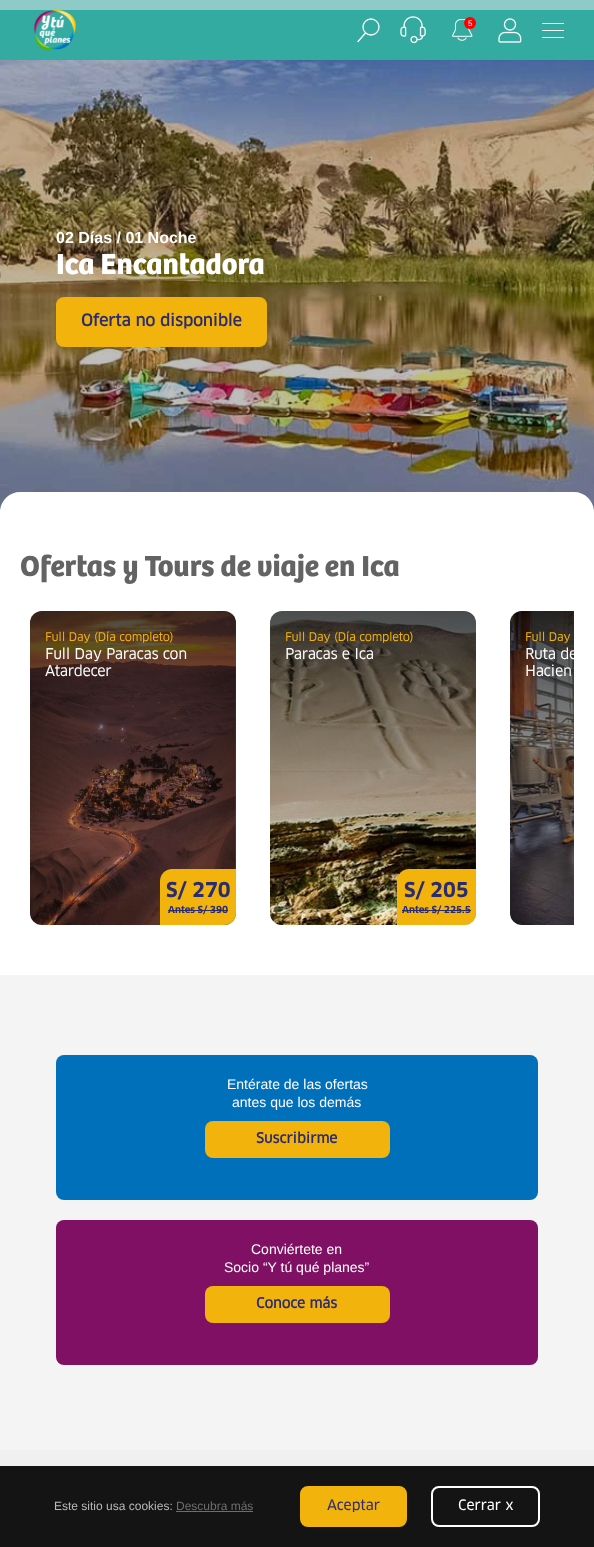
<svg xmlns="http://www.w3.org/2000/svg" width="594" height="1547">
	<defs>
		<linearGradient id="g1" gradientUnits="userSpaceOnUse" x1="133" y1="611" x2="133" y2="925"><stop offset="0" stop-color="#000000" stop-opacity="0.7" /><stop offset="1" stop-color="#000000" stop-opacity="0" /></linearGradient>
		<linearGradient id="g2" gradientUnits="userSpaceOnUse" x1="373" y1="611" x2="373" y2="925"><stop offset="0" stop-color="#000000" stop-opacity="0.7" /><stop offset="1" stop-color="#000000" stop-opacity="0" /></linearGradient>
		<linearGradient id="g3" gradientUnits="userSpaceOnUse" x1="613" y1="611" x2="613" y2="925"><stop offset="0" stop-color="#000000" stop-opacity="0.7" /><stop offset="1" stop-color="#000000" stop-opacity="0" /></linearGradient>
		<clipPath id="clip1"><rect x="20" y="606" width="554" height="329" /></clipPath>
	</defs>
	<rect width="100%" height="100%" fill="#FFFFFF" />
	<rect x="0" y="0" width="594" height="60" fill="#33ABA0" />
	<image x="33" y="9" width="44" height="42" href="assets/img1.png" />
	<rect x="0" y="0" width="594" height="10" fill="#E9ECEF" fill-opacity="0.5" />
	<path d="M365.5 33L358 41.5" fill="none" stroke="#FFFFFF" stroke-width="1.3" stroke-linecap="round" />
	<circle cx="371" cy="27" r="8" fill="none" stroke="#FFFFFF" stroke-width="1.3" />
	<image x="400" y="16" width="26" height="28" href="assets/img2.png" />
	<image x="452" y="19" width="21" height="22" href="assets/img3.png" />
	<circle cx="470" cy="23" r="6" fill="#FF0000" />
	<text x="468" y="26" font-family="Liberation Sans" font-size="8" fill="#FFFFFF">5</text>
	<image x="498" y="18" width="24" height="25" href="assets/img4.png" />
	<rect x="542" y="23" width="22" height="1" rx="0.5" fill="#FFFFFF" />
	<rect x="542" y="30" width="22" height="1" rx="0.5" fill="#FFFFFF" />
	<rect x="542" y="37" width="22" height="1" rx="0.5" fill="#FFFFFF" />
	<image x="0" y="60" width="594" height="450" href="assets/img5.png" />
	<text x="56" y="243" font-family="Liberation Sans" font-size="16" font-weight="700" fill="#FFFFFF">02 Días / 01 Noche</text>
	<text x="56" y="274" font-family="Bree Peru" font-size="30" font-weight="700" fill="#FFFFFF">Ica Encantadora</text>
	<rect x="56" y="297" width="211" height="50" rx="8" fill="#F2B30C" />
	<text x="81" y="326" font-family="'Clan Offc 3'" font-size="16" font-weight="700" fill="#2B2B6F">Oferta no disponible</text>
	<path d="M20 492H574C585 492 594 501 594 512V522H0V512C0 501 9 492 20 492Z" fill="#FFFFFF" />
	<text x="20" y="576" font-family="Bree Peru" font-size="30" font-weight="700" fill="#636363">Ofertas y Tours de viaje en Ica</text>
	<image x="30" y="611" width="206" height="314" href="assets/img6.png" />
	<rect x="30" y="611" width="206" height="314" rx="12" fill="url(#g1)" />
	<text x="45" y="641" font-family="'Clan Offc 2'" font-size="11.25" font-weight="700" fill="#F2B30C">Full Day (Día completo)</text>
	<g font-family="'Clan Offc 2'" font-size="14" font-weight="700" fill="#FFFFFF">
		<text x="45" y="659">Full Day Paracas con</text>
		<text x="45" y="676">Atardecer</text>
	</g>
	<path d="M172 869H236V913C236 919.5 230.5 925 224 925H160V881C160 874.5 165.5 869 172 869Z" fill="#F2B30C" />
	<text x="166" y="897" font-family="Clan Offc" font-size="20" font-weight="700" fill="#2B2B6F">S/ 270</text>
	<text x="168" y="913" font-family="Clan Offc" font-size="9.5" font-weight="700" fill="#2B2B6F">Antes S/ 390</text>
	<rect x="168" y="910" width="60" height="1" fill="#2B2B6F" />
	<image x="270" y="611" width="206" height="314" href="assets/img7.png" />
	<rect x="270" y="611" width="206" height="314" rx="12" fill="url(#g2)" />
	<text x="285" y="641" font-family="'Clan Offc 2'" font-size="11.25" font-weight="700" fill="#F2B30C">Full Day (Día completo)</text>
	<text x="285" y="659" font-family="'Clan Offc 2'" font-size="14" font-weight="700" fill="#FFFFFF">Paracas e Ica</text>
	<path d="M409 869H476V913C476 919.5 470.5 925 464 925H397V881C397 874.5 402.5 869 409 869Z" fill="#F2B30C" />
	<text x="404" y="897" font-family="Clan Offc" font-size="20" font-weight="700" fill="#2B2B6F">S/ 205</text>
	<text x="402" y="913" font-family="Clan Offc" font-size="9.5" font-weight="700" fill="#2B2B6F">Antes S/ 225.5</text>
	<rect x="402" y="910" width="69" height="1" fill="#2B2B6F" />
	<image x="510" y="611" width="64" height="314" href="assets/img8.png" />
	<path d="M522 611H574V925H522C515.5 925 510 919.5 510 913V623C510 616.5 515.5 611 522 611Z" fill="url(#g3)" />
	<text x="525" y="641" font-family="'Clan Offc 2'" font-size="11.25" font-weight="700" fill="#F2B30C">Full Day</text>
	<g clip-path="url(#clip1)">
		<text x="525" y="659" font-family="'Clan Offc 2'" font-size="14" font-weight="700" fill="#FFFFFF">Ruta de</text>
	</g>
	<text x="525" y="676" font-family="'Clan Offc 2'" font-size="14" font-weight="700" fill="#FFFFFF">Hacien</text>
	<rect x="0" y="1450" width="594" height="16" fill="#F0F0F0" />
	<rect x="0" y="975" width="594" height="475" fill="#F4F4F4" />
	<rect x="56" y="1055" width="482" height="145" rx="8" fill="#0070BA" />
	<g font-family="Liberation Sans" font-size="14" fill="#FFFFFF">
		<text x="227" y="1089">Entérate de las ofertas</text>
		<text x="232" y="1107">antes que los demás</text>
	</g>
	<rect x="205" y="1121" width="185" height="37" rx="8" fill="#F2B30C" />
	<text x="256" y="1143" font-family="'Clan Offc 3'" font-size="14" font-weight="700" fill="#2B2B6F">Suscribirme</text>
	<rect x="56" y="1220" width="482" height="145" rx="8" fill="#801063" />
	<g font-family="Liberation Sans" font-size="14" fill="#FFFFFF">
		<text x="251" y="1254">Conviértete en</text>
		<text x="224" y="1272">Socio “Y tú qué planes”</text>
	</g>
	<rect x="205" y="1286" width="185" height="37" rx="8" fill="#F2B30C" />
	<text x="256" y="1308" font-family="'Clan Offc 3'" font-size="14" font-weight="700" fill="#2B2B6F">Conoce más</text>
	<rect x="0" y="1466" width="594" height="81" fill="#141414" />
	<text x="54" y="1510" font-family="Liberation Sans" font-size="12" fill="#B9B9B9">Este sitio usa cookies:</text>
	<text x="176" y="1510" font-family="Liberation Sans" font-size="12" fill="#6E6E6E">Descubra más</text>
	<rect x="176" y="1511" width="77" height="1" fill="#6E6E6E" />
	<rect x="301" y="1487" width="105" height="39" rx="7" fill="#F2B30C" stroke="#F2B30C" stroke-width="2" />
	<text x="327" y="1510" font-family="Clan Offc" font-size="14" fill="#2B2B6F">Aceptar</text>
	<rect x="432" y="1487" width="107" height="39" rx="7" fill="none" stroke="#FFFFFF" stroke-width="2" />
	<text x="458" y="1510" font-family="Clan Offc" font-size="14" fill="#FFFFFF">Cerrar x</text>
</svg>
